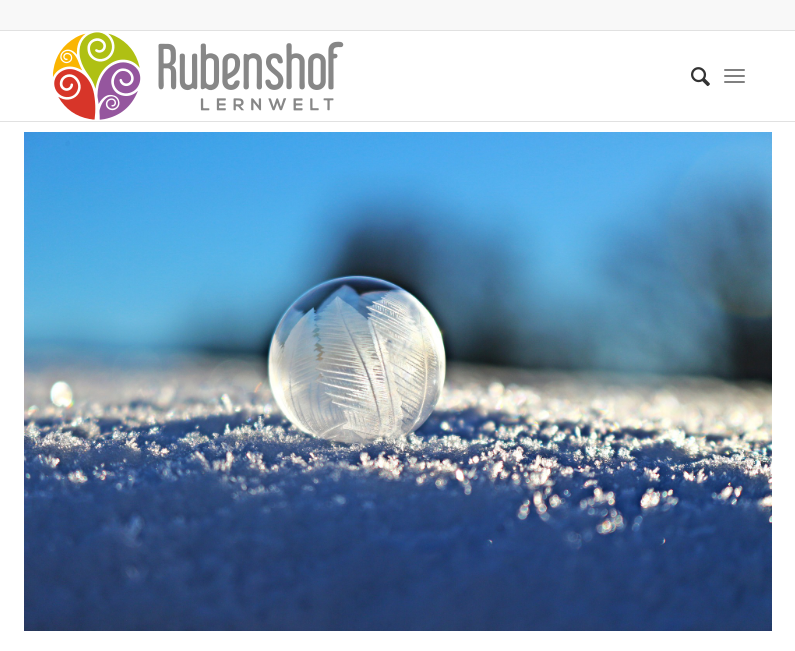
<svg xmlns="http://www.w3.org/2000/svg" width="795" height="651">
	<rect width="100%" height="100%" fill="#FFFFFF" />
	<rect x="0" y="0" width="795" height="30" fill="#F8F8F8" />
	<rect x="0" y="30" width="795" height="1" fill="#E1E1E1" />
	<rect x="0" y="121" width="795" height="1" fill="#E1E1E1" />
	<image x="52" y="32" width="292" height="88" href="assets/img1.png" />
	<image x="691" y="67" width="19" height="20" href="assets/img2.png" />
	<rect x="724" y="75" width="21" height="2" rx="1" fill="#808080" />
	<rect x="724" y="69" width="21" height="2" rx="1" fill="#808080" />
	<rect x="724" y="81" width="21" height="2" rx="1" fill="#808080" />
	<image x="24" y="132" width="748" height="499" href="assets/img3.png" />
</svg>
